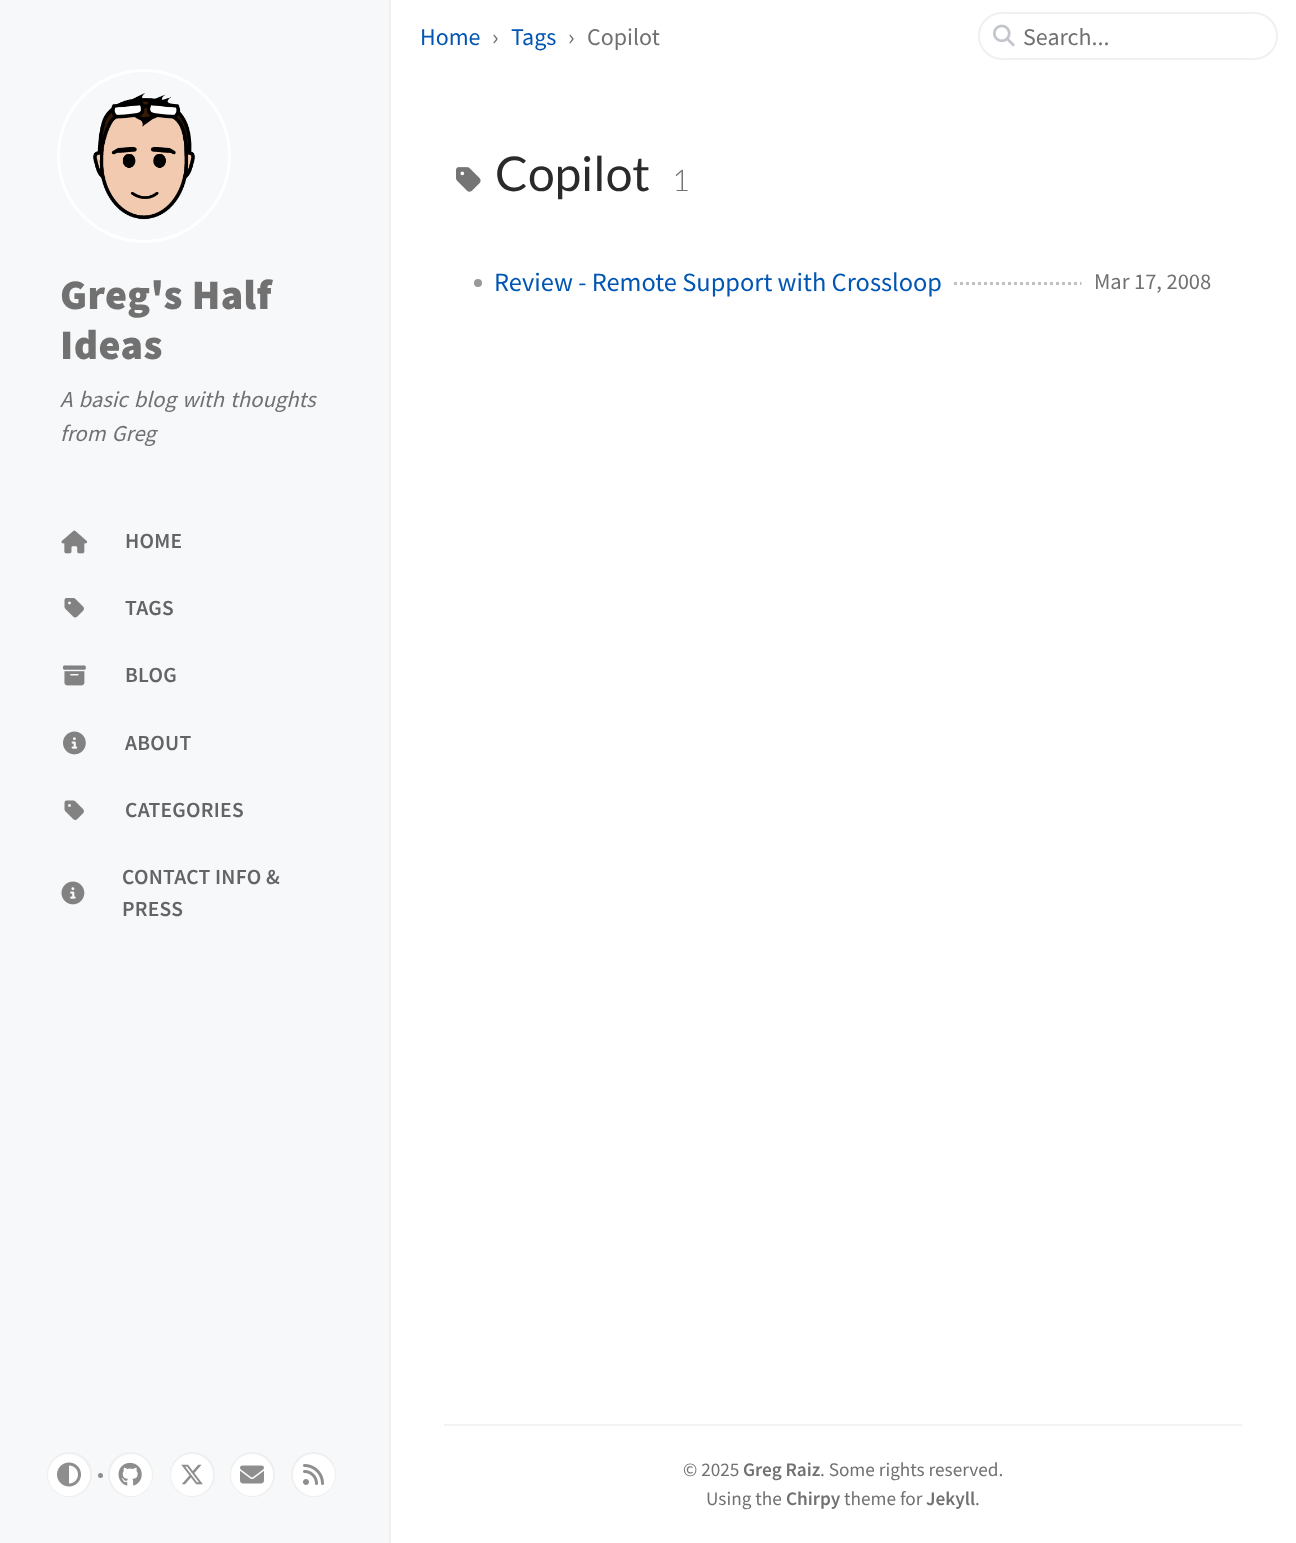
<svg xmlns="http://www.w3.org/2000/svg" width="1296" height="1543">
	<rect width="100%" height="100%" fill="#FFFFFF" />
	<rect x="0" y="0" width="389" height="1543" fill="#F6F8FA" />
	<rect x="389" y="0" width="2" height="1543" fill="#EFEFEF" />
	<circle cx="144" cy="156" r="85.5" fill="none" stroke="#FFFFFF" stroke-width="3" />
	<image x="93" y="93" width="102" height="127" href="assets/img1.png" />
	<g font-family="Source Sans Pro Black" font-size="42" font-weight="900" letter-spacing="0.4" fill="#717171">
		<text x="60" y="309">Greg's Half</text>
		<text x="60" y="359">Ideas</text>
	</g>
	<g font-family="Source Sans Pro" font-size="22.75" font-style="italic" fill="#717171">
		<text x="60" y="407" word-spacing="1.5">A basic blog with thoughts</text>
		<text x="60" y="441" word-spacing="1.5">from Greg</text>
	</g>
	<image x="61" y="530" width="27" height="24" href="assets/img2.png" />
	<text x="125" y="548" font-family="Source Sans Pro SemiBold" font-size="21.5" font-weight="600" letter-spacing="0.25" fill="#646465">HOME</text>
	<image x="64" y="598" width="20" height="20" href="assets/img3.png" />
	<text x="125" y="615" font-family="Source Sans Pro SemiBold" font-size="21.5" font-weight="600" letter-spacing="0.25" fill="#646465">TAGS</text>
	<image x="63" y="665" width="23" height="21" href="assets/img4.png" />
	<text x="125" y="682" font-family="Source Sans Pro SemiBold" font-size="21.5" font-weight="600" letter-spacing="0.25" fill="#646465">BLOG</text>
	<image x="63" y="731" width="23" height="24" href="assets/img5.png" />
	<text x="125" y="750" font-family="Source Sans Pro SemiBold" font-size="21.5" font-weight="600" letter-spacing="0.25" fill="#646465">ABOUT</text>
	<image x="64" y="800" width="20" height="20" href="assets/img6.png" />
	<text x="125" y="817" font-family="Source Sans Pro SemiBold" font-size="21.5" font-weight="600" letter-spacing="0.25" fill="#646465">CATEGORIES</text>
	<image x="61" y="881" width="24" height="24" href="assets/img7.png" />
	<g font-family="Source Sans Pro SemiBold" font-size="21.5" font-weight="600" letter-spacing="0.25" fill="#646465">
		<text x="122" y="884">CONTACT INFO &amp;</text>
		<text x="122" y="916">PRESS</text>
	</g>
	<circle cx="69.5" cy="1474.5" r="21.5" fill="none" stroke="#EFEFEF" stroke-width="2" />
	<circle cx="69" cy="1475" r="21" fill="#FFFFFF" />
	<image x="57" y="1462" width="24" height="25" href="assets/img8.png" />
	<circle cx="100.5" cy="1475.5" r="2.5" fill="#8E8E8E" />
	<circle cx="130.5" cy="1474.5" r="21.5" fill="none" stroke="#EFEFEF" stroke-width="2" />
	<circle cx="131" cy="1475" r="21" fill="#FFFFFF" />
	<image x="118" y="1462" width="24" height="24" href="assets/img9.png" />
	<circle cx="192.5" cy="1474.5" r="21.5" fill="none" stroke="#EFEFEF" stroke-width="2" />
	<circle cx="192" cy="1475" r="21" fill="#FFFFFF" />
	<image x="181" y="1464" width="22" height="21" href="assets/img10.png" />
	<circle cx="252.5" cy="1474.5" r="21.5" fill="none" stroke="#EFEFEF" stroke-width="2" />
	<circle cx="252" cy="1475" r="21" fill="#FFFFFF" />
	<image x="240" y="1465" width="24" height="19" href="assets/img11.png" />
	<circle cx="313.5" cy="1474.5" r="21.5" fill="none" stroke="#EFEFEF" stroke-width="2" />
	<circle cx="314" cy="1475" r="21" fill="#FFFFFF" />
	<image x="303" y="1464" width="21" height="21" href="assets/img12.png" />
	<text x="420" y="45" font-family="Source Sans Pro" font-size="24" fill="#0056B2">Home</text>
	<text x="492" y="45" font-family="Source Sans Pro" font-size="24" fill="#717171">›</text>
	<text x="511" y="45" font-family="Source Sans Pro" font-size="24" fill="#0056B2">Tags</text>
	<g font-family="Source Sans Pro" font-size="24" fill="#717171">
		<text x="568" y="45">›</text>
		<text x="587" y="45">Copilot</text>
	</g>
	<rect x="979" y="13" width="298" height="46" rx="23" fill="none" stroke="#F0F0F0" stroke-width="2" />
	<image x="993" y="24" width="22" height="23" href="assets/img13.png" />
	<text x="1023" y="45" font-family="Source Sans Pro" font-size="24" fill="#717171">Search...</text>
	<image x="456" y="167" width="25" height="25" href="assets/img14.png" />
	<text x="495" y="191" font-family="Lato" font-size="48" fill="#2A2A2A">Copilot</text>
	<text x="672" y="191" font-family="Lato" font-size="30" font-weight="300" fill="#717171">1</text>
	<circle cx="478" cy="283" r="4" fill="#999999" />
	<text x="494" y="291" font-family="Source Sans Pro" font-size="26.4" fill="#0056B2">Review - Remote Support with Crossloop</text>
	<path d="M954 283.5H1081.5" fill="none" stroke="#C0C0C0" stroke-width="3" stroke-dasharray="3 3" />
	<text x="1094" y="289" font-family="Source Sans Pro" font-size="22.5" fill="#717171">Mar 17, 2008</text>
	<rect x="444" y="1424" width="798" height="2" fill="#F3F3F3" />
	<text x="683" y="1476" font-family="Source Sans Pro" font-size="19.25" fill="#717171">© 2025</text>
	<text x="743" y="1476" font-family="Source Sans Pro SemiBold" font-size="19.25" font-weight="600" fill="#717171">Greg Raiz</text>
	<g font-family="Source Sans Pro" font-size="19.25" fill="#717171">
		<text x="820" y="1476">. Some rights reserved.</text>
		<text x="706" y="1505">Using the</text>
	</g>
	<text x="786" y="1505" font-family="Source Sans Pro SemiBold" font-size="19.25" font-weight="600" fill="#717171">Chirpy</text>
	<text x="844" y="1505" font-family="Source Sans Pro" font-size="19.25" fill="#717171">theme for</text>
	<text x="926" y="1505" font-family="Source Sans Pro SemiBold" font-size="19.25" font-weight="600" fill="#717171">Jekyll</text>
	<text x="975" y="1505" font-family="Source Sans Pro" font-size="19.25" fill="#717171">.</text>
</svg>
